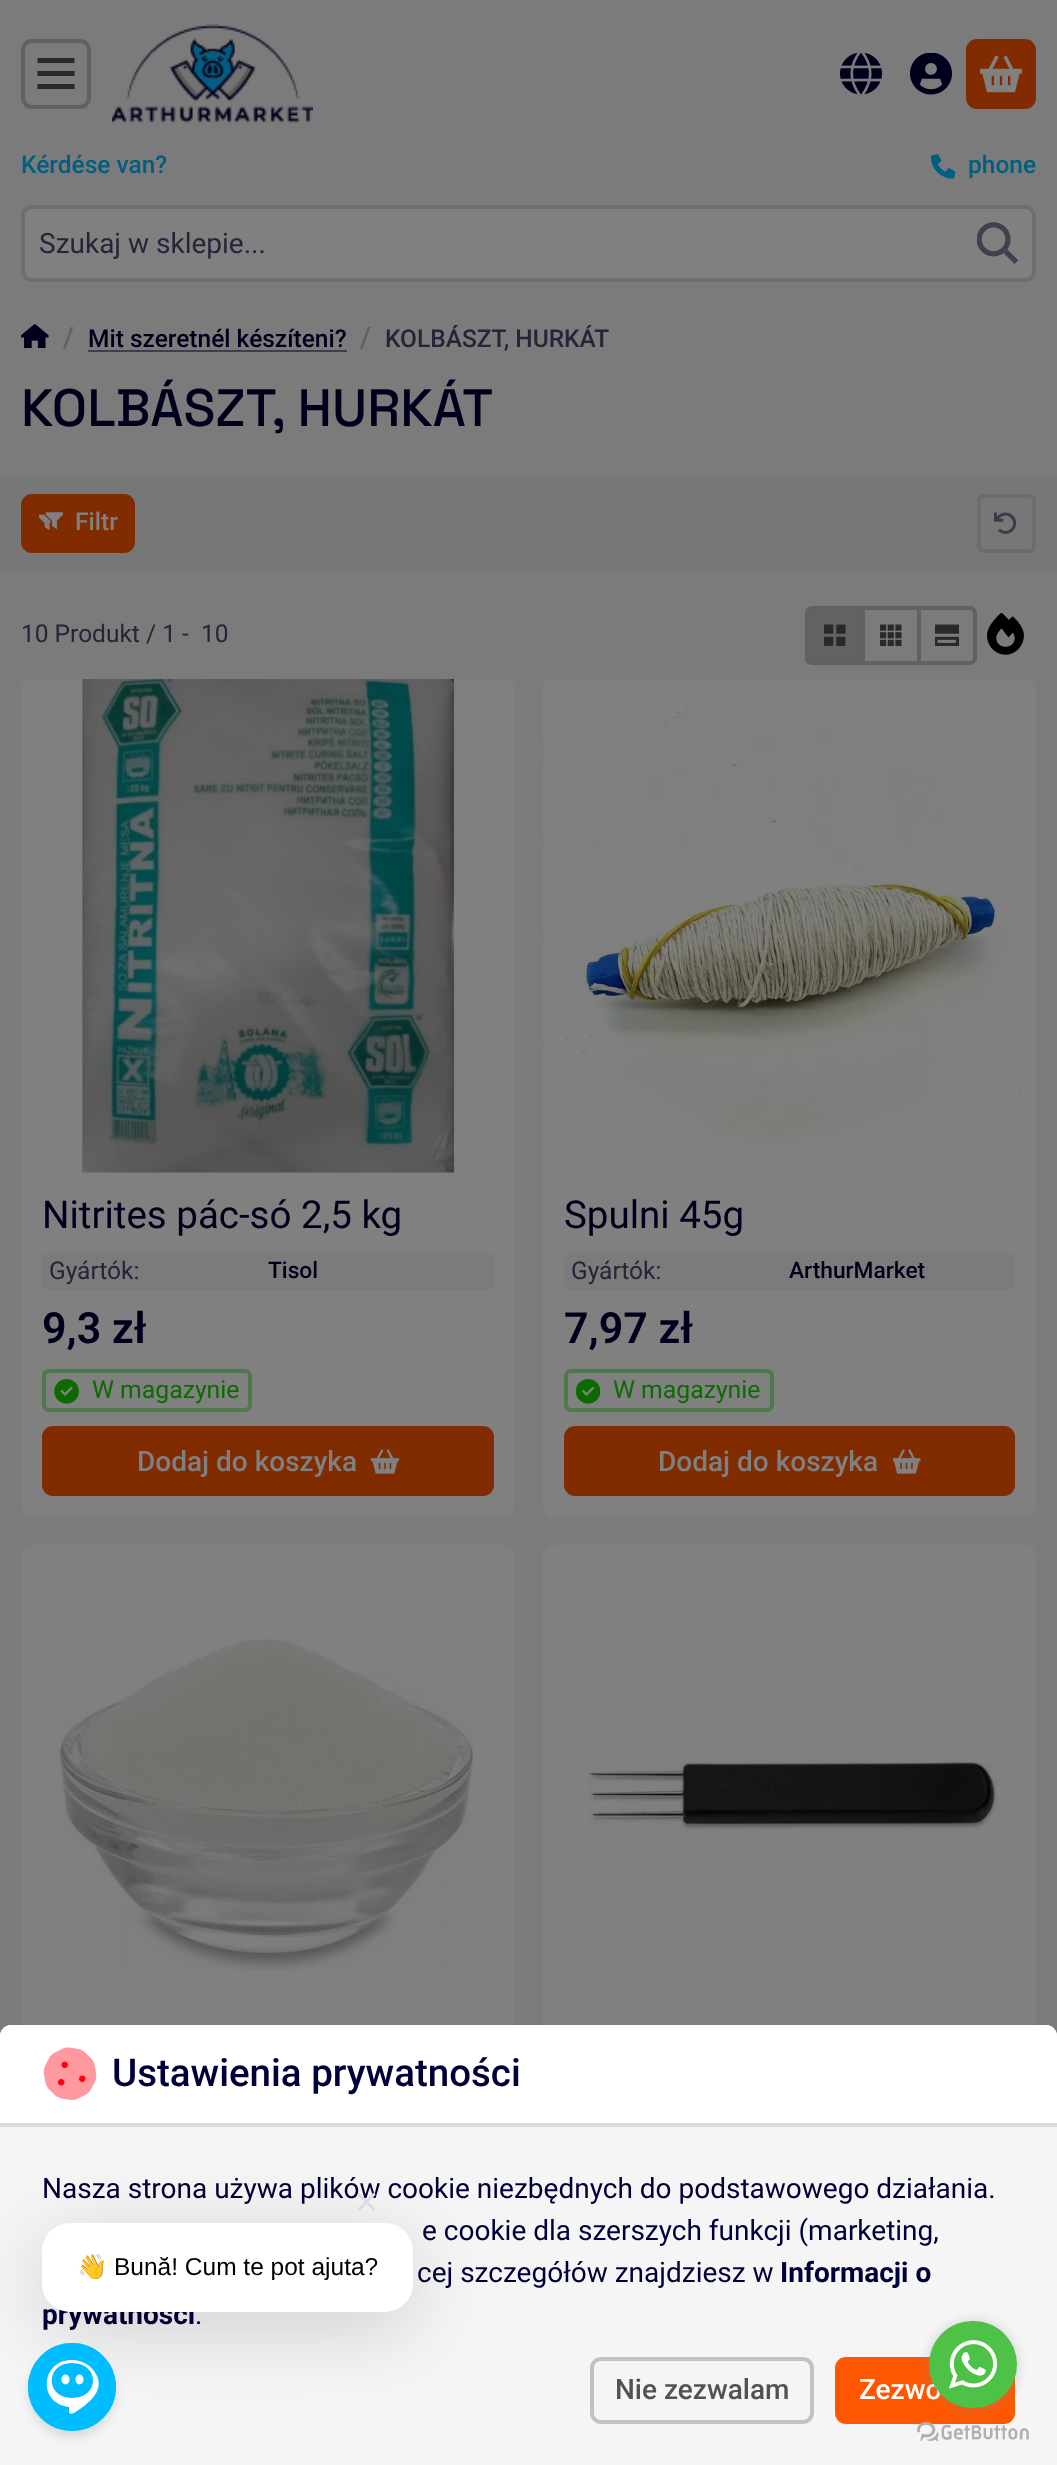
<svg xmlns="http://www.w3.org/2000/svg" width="1057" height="2465">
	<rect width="100%" height="100%" fill="#7B7B7B" />
	<rect x="23" y="41" width="66" height="66" rx="9" fill="none" stroke="#616161" stroke-width="4" />
	<path d="M37.5 58H74.5V63H37.5ZM37.5 71H74.5V76H37.5ZM74.5 84V89H37.5V84Z" fill="#292929" />
	<image x="112" y="24" width="201" height="99" href="assets/img1.png" />
	<image x="840" y="53" width="42" height="42" href="assets/img2.png" />
	<image x="910" y="53" width="42" height="42" href="assets/img3.png" />
	<rect x="968" y="41" width="66" height="66" rx="9" fill="#802C00" stroke="#802C00" stroke-width="4" />
	<image x="980" y="55" width="42" height="38" href="assets/img4.png" />
	<text x="21" y="173" font-family="Roboto" font-size="24.5" font-weight="500" fill="#005F80">Kérdése van?</text>
	<image x="931" y="154" width="25" height="25" href="assets/img5.png" />
	<text x="968" y="173" font-family="Roboto" font-size="24.5" font-weight="500" fill="#005F80">phone</text>
	<rect x="23" y="207" width="1011" height="73" rx="9" fill="#808080" stroke="#6E6E6E" stroke-width="4" />
	<text x="39" y="253" font-family="Roboto" font-size="28" fill="#252539">Szukaj w sklepie...</text>
	<image x="977" y="222" width="42" height="42" href="assets/img6.png" />
	<image x="21" y="324" width="28" height="24" href="assets/img7.png" />
	<text x="63" y="347" font-family="Roboto" font-size="28" font-weight="500" fill="#616161">/</text>
	<text x="88" y="347" font-family="Roboto" font-size="24.5" font-weight="500" fill="#00001D">Mit szeretnél készíteni?</text>
	<rect x="88" y="350" width="259" height="2" fill="#3E3E4C" />
	<text x="360" y="347" font-family="Roboto" font-size="28" font-weight="500" fill="#616161">/</text>
	<text x="385" y="347" font-family="Roboto" font-size="24.5" font-weight="500" fill="#252539">KOLBÁSZT, HURKÁT</text>
	<text x="21" y="426" font-family="Space Grotesk" font-size="52.5" font-weight="500" fill="#00001D">KOLBÁSZT, HURKÁT</text>
	<rect x="0" y="476" width="1057" height="95" fill="#777777" />
	<rect x="23" y="496" width="110" height="55" rx="9" fill="#802C00" stroke="#802C00" stroke-width="4" />
	<image x="39" y="512" width="24" height="18" href="assets/img8.png" />
	<text x="75" y="530" font-family="Roboto" font-size="24.5" font-weight="500" fill="#808080">Filtr</text>
	<rect x="979" y="496" width="55" height="55" rx="5" fill="none" stroke="#6C6C6C" stroke-width="4" />
	<image x="994" y="512" width="23" height="22" href="assets/img9.png" />
	<g font-family="Roboto" font-size="24.5" fill="#252539">
		<text x="21" y="642">10 Produkt / 1 -</text>
		<text x="201" y="642">10</text>
	</g>
	<rect x="863" y="608" width="56" height="55" fill="none" stroke="#616161" stroke-width="4" />
	<path d="M812 608H863V663H812C809 663 807 661 807 658V613C807 610 809 608 812 608Z" fill="#626262" stroke="#616161" stroke-width="4" />
	<image x="824" y="624" width="22" height="22" href="assets/img10.png" />
	<image x="880" y="624" width="22" height="22" href="assets/img11.png" />
	<path d="M919 608H970C973 608 975 610 975 613V658C975 661 973 663 970 663H919Z" fill="#7B7B7B" stroke="#616161" stroke-width="4" />
	<image x="935" y="624" width="24" height="22" href="assets/img12.png" />
	<image x="987" y="613" width="37" height="42" href="assets/img13.png" />
	<rect x="21" y="679" width="494" height="838" rx="11" fill="#808080" />
	<image x="82" y="679" width="374" height="494" href="assets/img14.png" />
	<text x="42" y="1228" font-family="Roboto" font-size="38.5" fill="#00001D">Nitrites pác-só 2,5 kg</text>
	<rect x="42" y="1253" width="452" height="37" rx="7" fill="#7B7B7B" />
	<text x="49" y="1279" font-family="Roboto" font-size="24.5" fill="#252539">Gyártók:</text>
	<text x="268" y="1278" font-family="Roboto" font-size="22.75" font-weight="500" fill="#00001D">Tisol</text>
	<text x="42" y="1343" font-family="Roboto" font-size="43" font-weight="600" fill="#00001D">9,3 zł</text>
	<rect x="44" y="1371" width="206" height="39" rx="5" fill="none" stroke="#51774D" stroke-width="4" />
	<image x="54" y="1379" width="25" height="25" href="assets/img15.png" />
	<text x="92" y="1398" font-family="Roboto" font-size="24.75" fill="#0C6A00">W magazynie</text>
	<rect x="44" y="1428" width="448" height="66" rx="9" fill="#802C00" stroke="#802C00" stroke-width="4" />
	<text x="137" y="1471" font-family="Roboto" font-size="28" font-weight="500" fill="#808080">Dodaj do koszyka</text>
	<image x="371" y="1449" width="28" height="25" href="assets/img16.png" />
	<rect x="543" y="679" width="493" height="838" rx="11" fill="#808080" />
	<image x="543" y="680" width="478" height="466" href="assets/img17.png" />
	<text x="564" y="1228" font-family="Roboto" font-size="38.5" fill="#00001D">Spulni 45g</text>
	<rect x="564" y="1253" width="451" height="37" rx="7" fill="#7B7B7B" />
	<text x="571" y="1279" font-family="Roboto" font-size="24.5" fill="#252539">Gyártók:</text>
	<text x="789" y="1278" font-family="Roboto" font-size="22.75" font-weight="500" fill="#00001D">ArthurMarket</text>
	<text x="564" y="1343" font-family="Roboto" font-size="43" font-weight="600" fill="#00001D">7,97 zł</text>
	<rect x="566" y="1371" width="206" height="39" rx="5" fill="none" stroke="#51774D" stroke-width="4" />
	<image x="576" y="1379" width="24" height="25" href="assets/img18.png" />
	<text x="613" y="1398" font-family="Roboto" font-size="24.75" fill="#0C6A00">W magazynie</text>
	<rect x="566" y="1428" width="447" height="66" rx="9" fill="#802C00" stroke="#802C00" stroke-width="4" />
	<text x="658" y="1471" font-family="Roboto" font-size="28" font-weight="500" fill="#808080">Dodaj do koszyka</text>
	<image x="893" y="1449" width="28" height="25" href="assets/img19.png" />
	<rect x="21" y="1545" width="494" height="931" rx="11" fill="#808080" />
	<image x="59" y="1638" width="415" height="333" href="assets/img20.png" />
	<rect x="543" y="1545" width="493" height="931" rx="11" fill="#808080" />
	<image x="543" y="1548" width="454" height="283" href="assets/img21.png" />
	<path d="M11 2025H1046C1052 2025 1057 2030 1057 2036V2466H0V2036C0 2030 5 2025 11 2025Z" fill="#F5F5F5" />
	<path d="M11 2025H1046C1052 2025 1057 2030 1057 2036V2126H0V2036C0 2030 5 2025 11 2025Z" fill="#FFFFFF" />
	<rect x="0" y="2123" width="1057" height="4" fill="#DBDBDB" />
	<image x="43" y="2047" width="54" height="53" href="assets/img22.png" />
	<text x="112" y="2086" font-family="Roboto" font-size="38.5" font-weight="500" fill="#00003A">Ustawienia prywatności</text>
	<g font-family="Roboto" font-size="28" fill="#00003A">
		<text x="42" y="2198">Nasza strona używa plików cookie niezbędnych do podstawowego działania.</text>
		<text x="422" y="2240">e cookie dla szerszych funkcji (marketing,</text>
		<text x="417" y="2282">cej szczegółów znajdziesz w</text>
	</g>
	<g font-family="Roboto" font-size="28" font-weight="700" fill="#00003A">
		<text x="780" y="2282">Informacji o</text>
		<text x="42" y="2324">prywatności</text>
	</g>
	<text x="195" y="2324" font-family="Roboto" font-size="28" fill="#00003A">.</text>
	<rect x="592" y="2359" width="220" height="63" rx="9" fill="none" stroke="#C2C2C2" stroke-width="4" />
	<text x="615" y="2399" font-family="Roboto" font-size="28" font-weight="500" fill="#525252">Nie zezwalam</text>
	<rect x="837" y="2359" width="176" height="63" rx="9" fill="#FF5700" stroke="#FF5700" stroke-width="4" />
	<text x="859" y="2399" font-family="Roboto" font-size="28" font-weight="500" fill="#FFFFFF">Zezwó</text>
	<rect x="42" y="2240" width="371" height="89" rx="28" fill="#000000" fill-opacity="0.15" filter="blur(39.5px)" />
	<rect x="42" y="2223" width="371" height="89" rx="28" fill="#FFFFFF" />
	<text x="354" y="2216" font-family="Liberation Sans" font-size="42" fill="#DDDDE1">×</text>
	<text x="77" y="2275" font-family="Noto Color Emoji" font-size="24.5" fill="#000000">👋</text>
	<text x="114" y="2275" font-family="Liberation Sans" font-size="24.5" fill="#000000">Bună! Cum te pot ajuta?</text>
	<rect x="28" y="2350" width="88" height="88" rx="44" fill="#000000" fill-opacity="0.1" filter="blur(5px)" />
	<circle cx="72" cy="2387" r="44" fill="#00BDFF" />
	<ellipse cx="65.5" cy="2379.5" rx="4" ry="5" fill="#FFFFFF" />
	<ellipse cx="79.5" cy="2379.5" rx="4" ry="5" fill="#FFFFFF" />
	<path d="M72 2360C41 2360 37 2403 69 2407V2412C70 2417 78 2410 80 2409C93 2400 106 2387 94 2371C89 2364 81 2360 72 2360ZM72 2398C45 2398 45 2363 72 2363C100 2363 100 2398 72 2398Z" fill="#FFFFFF" />
	<circle cx="72" cy="2387" r="39.5" fill="none" stroke="#00BDFF" stroke-width="9" />
	<image x="917" y="2422" width="112" height="19" href="assets/img24.png" />
	<rect x="929" y="2322" width="88" height="88" rx="44" fill="#888888" fill-opacity="0.4" filter="blur(6px)" />
	<rect x="929" y="2321" width="88" height="87" rx="43.5" fill="#4DC247" />
	<image x="949" y="2340" width="49" height="49" href="assets/img23.png" />
</svg>
